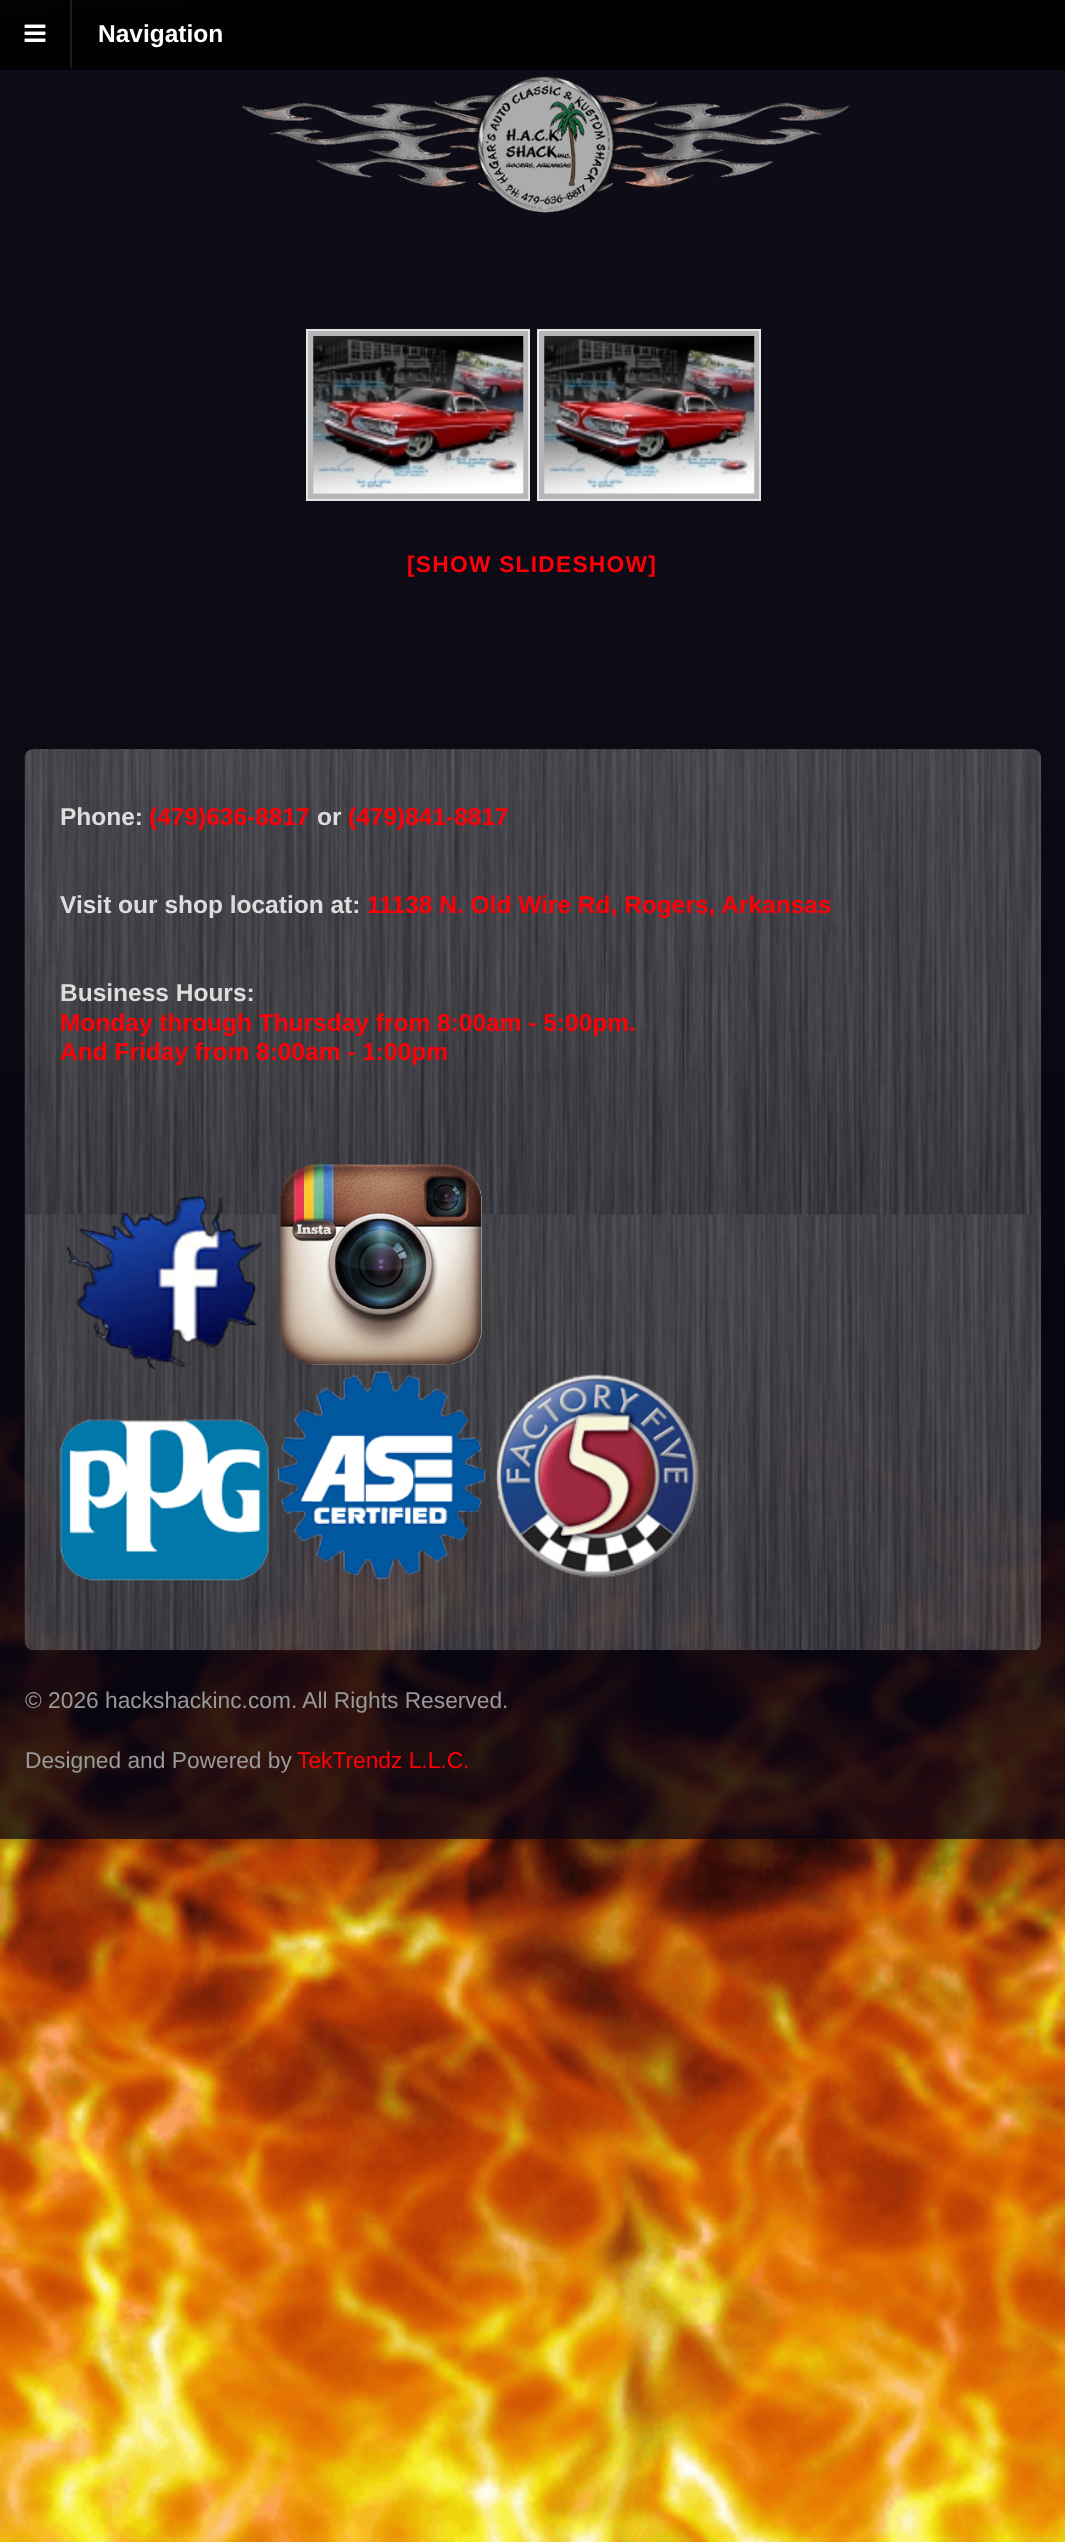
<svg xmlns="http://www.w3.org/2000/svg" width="1065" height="2542">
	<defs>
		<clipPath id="clip1"><rect x="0" y="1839" width="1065" height="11" /></clipPath>
		<linearGradient id="g1" gradientUnits="userSpaceOnUse" x1="529" y1="-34" x2="537" y2="102"><stop offset="0" stop-color="#020103" /><stop offset="1" stop-color="#010102" /></linearGradient>
		<linearGradient id="g2" gradientUnits="userSpaceOnUse" x1="529" y1="34" x2="537" y2="170"><stop offset="0" stop-color="#020103" /><stop offset="1" stop-color="#010102" /></linearGradient>
	</defs>
	<rect width="100%" height="100%" fill="#FFFFFF" />
	<image x="0" y="70" width="1065" height="2472" href="assets/img1.png" />
	<g clip-path="url(#clip1)">
		<rect x="-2" y="2" width="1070" height="1843" fill="#000000" fill-opacity="0.15" filter="blur(4.5px)" />
	</g>
	<rect x="0" y="70" width="1065" height="1769" fill="#070413" fill-opacity="0.75" />
	<rect x="0" y="0" width="1065" height="68" fill="url(#g1)" />
	<rect x="0" y="68" width="1065" height="2" fill="url(#g2)" />
	<rect x="70" y="0" width="2" height="68" fill="#1B1A1C" />
	<image x="24" y="24" width="22" height="18" href="assets/img2.png" />
	<text x="98" y="42" font-family="Liberation Sans" font-size="24.5" font-weight="700" fill="#FFFFFF">Navigation</text>
	<image x="242" y="76" width="608" height="137" href="assets/img3.png" />
	<rect x="307" y="330" width="222" height="170" fill="#B7B6B9" stroke="#E6E6E6" stroke-width="2" />
	<image x="313" y="336" width="211" height="158" href="assets/img4.png" />
	<rect x="538" y="330" width="222" height="170" fill="#B7B6B9" stroke="#E6E6E6" stroke-width="2" />
	<image x="544" y="336" width="211" height="158" href="assets/img5.png" />
	<text x="407" y="572" font-family="Liberation Sans" font-size="22.75" font-weight="700" letter-spacing="1.25" fill="#FF0008">[SHOW SLIDESHOW]</text>
	<image x="24" y="749" width="1018" height="902" href="assets/img6.png" />
	<text x="60" y="825" font-family="Liberation Sans" font-size="24.5" font-weight="700" fill="#DDDDDD">Phone:</text>
	<text x="149" y="825" font-family="Liberation Sans" font-size="24.5" font-weight="700" fill="#FF0008">(479)636-8817</text>
	<text x="317" y="825" font-family="Liberation Sans" font-size="24.5" font-weight="700" fill="#DDDDDD">or</text>
	<text x="348" y="825" font-family="Liberation Sans" font-size="24.5" font-weight="700" fill="#FF0008">(479)841-8817</text>
	<text x="60" y="913" font-family="Liberation Sans" font-size="24.5" font-weight="700" fill="#DDDDDD">Visit our shop location at:</text>
	<text x="367" y="913" font-family="Liberation Sans" font-size="24.5" font-weight="700" fill="#FF0008">11138 N. Old Wire Rd, Rogers, Arkansas</text>
	<text x="60" y="1001" font-family="Liberation Sans" font-size="24.5" font-weight="700" fill="#DDDDDD">Business Hours:</text>
	<g font-family="Liberation Sans" font-size="24.5" font-weight="700" fill="#FF0008">
		<text x="60" y="1031">Monday through Thursday from 8:00am - 5:00pm.</text>
		<text x="60" y="1060">And Friday from 8:00am - 1:00pm</text>
	</g>
	<image x="66" y="1195" width="197" height="175" href="assets/img7.png" />
	<image x="280" y="1164" width="202" height="201" href="assets/img8.png" />
	<image x="59" y="1419" width="211" height="162" href="assets/img9.png" />
	<image x="277" y="1371" width="209" height="209" href="assets/img10.png" />
	<image x="492" y="1373" width="208" height="205" href="assets/img11.png" />
	<g font-family="Liberation Sans" font-size="22.75" fill="#999999">
		<text x="25" y="1708">© 2026 hackshackinc.com. All Rights Reserved.</text>
		<text x="25" y="1768">Designed and Powered by</text>
	</g>
	<text x="297" y="1768" font-family="Liberation Sans" font-size="22.75" fill="#FF0008">TekTrendz L.L.C.</text>
</svg>
